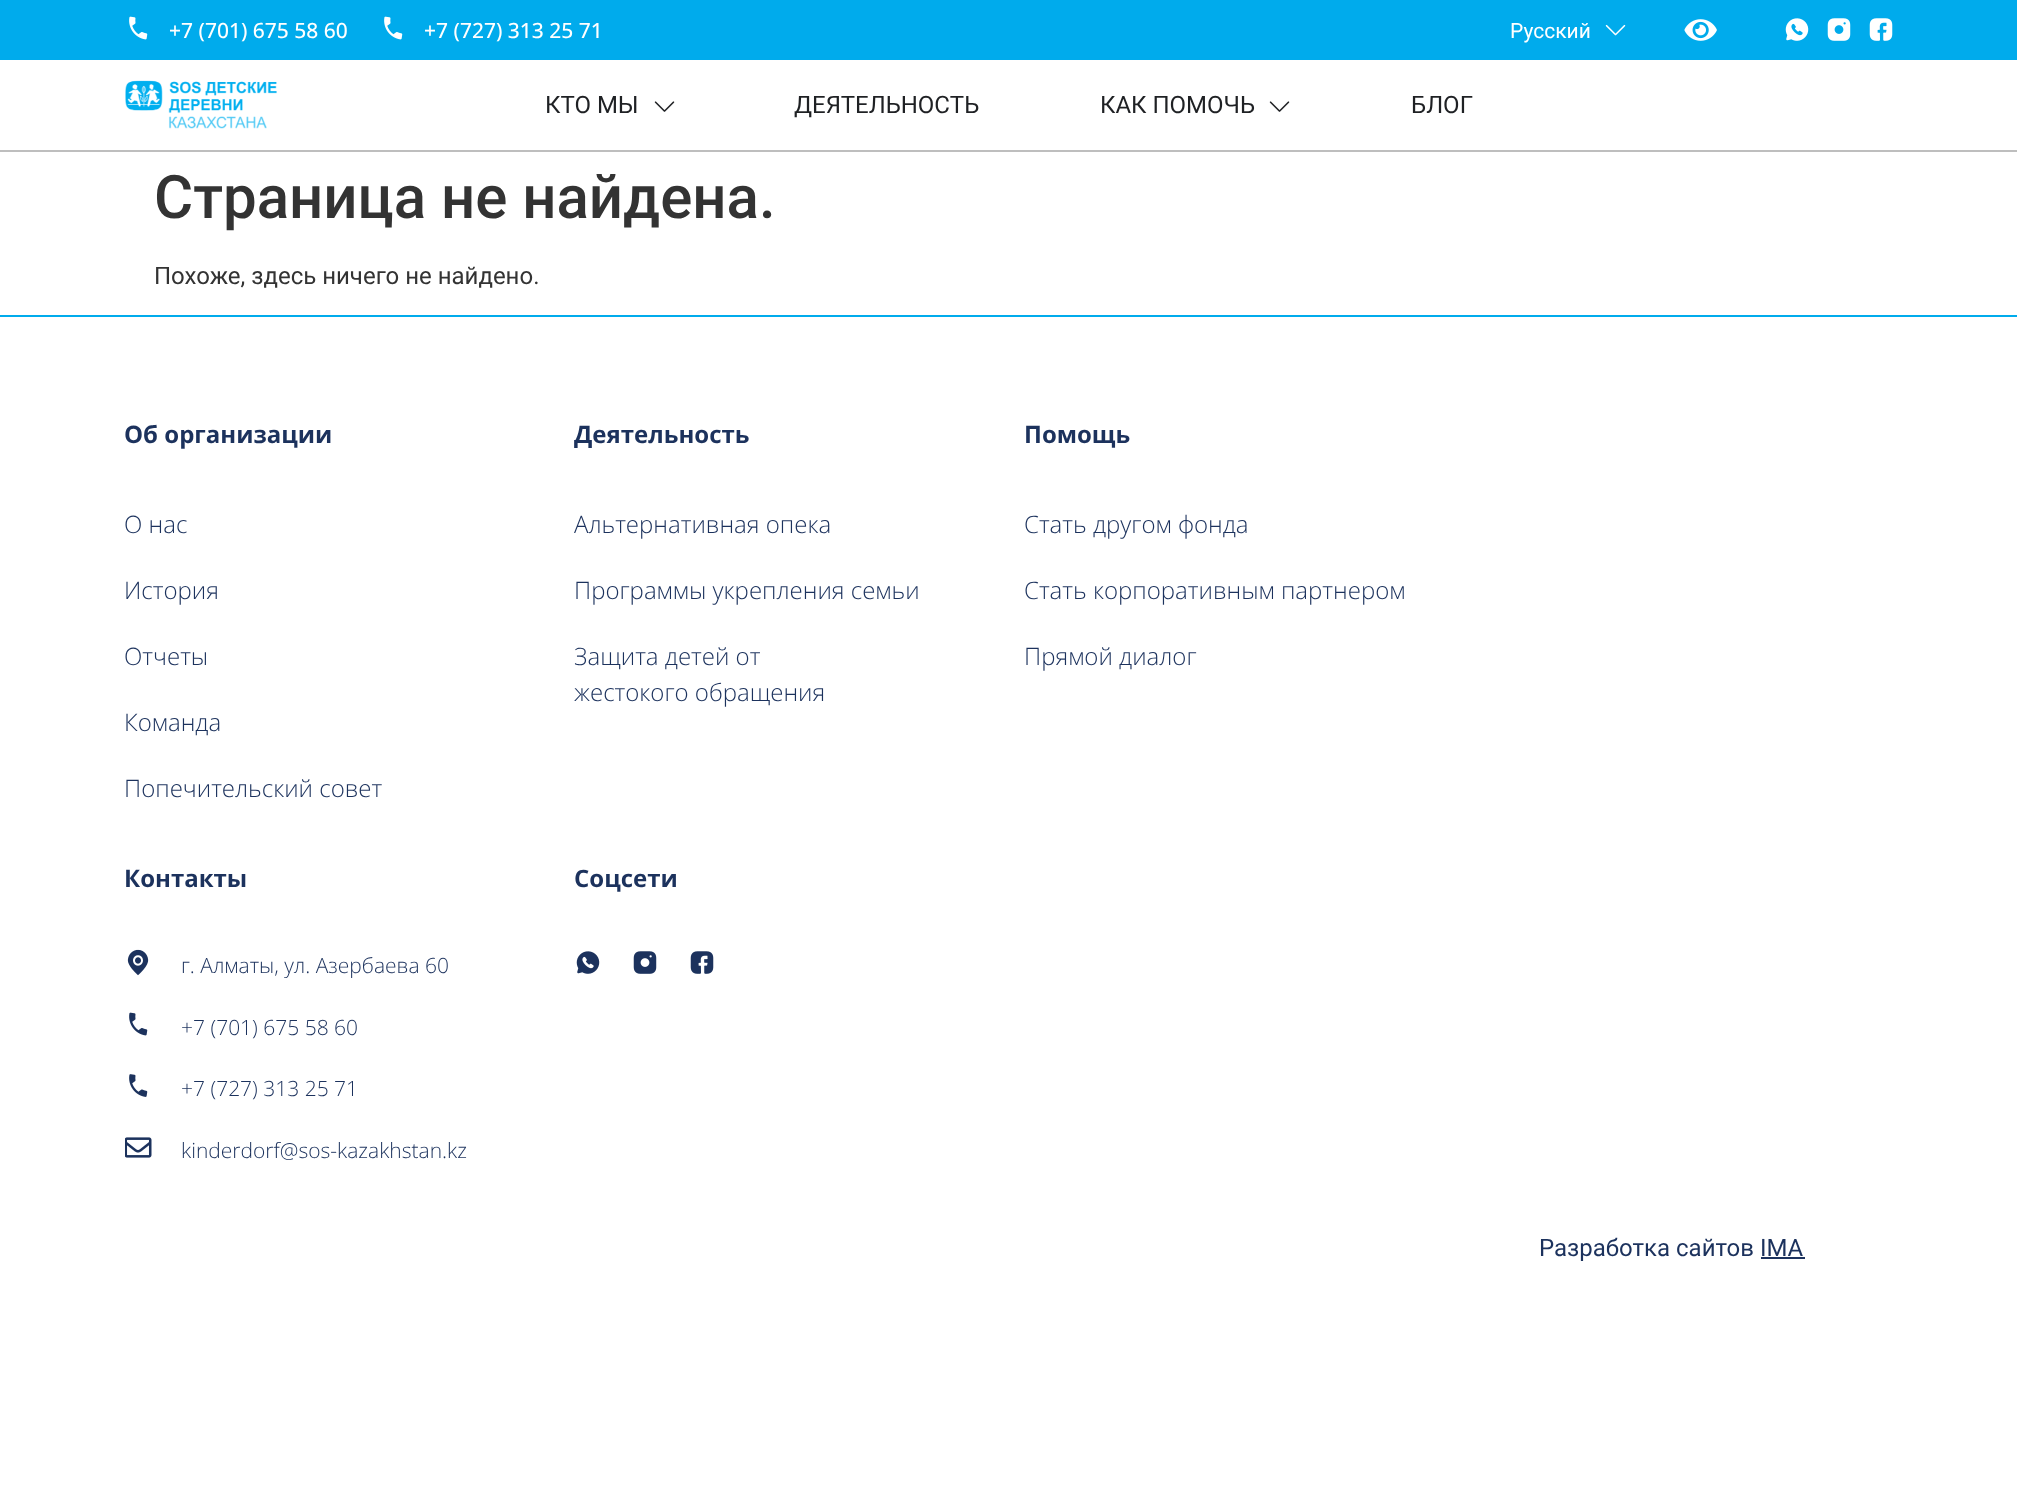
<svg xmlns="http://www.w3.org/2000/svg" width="2017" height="1510">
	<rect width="100%" height="100%" fill="#FFFFFF" />
	<rect x="0" y="150" width="2017" height="2" fill="#BEBEBE" />
	<rect x="0" y="0" width="2017" height="60" fill="#00ABEC" />
	<image x="129" y="16" width="19" height="24" href="assets/img1.png" />
	<text x="169" y="38" font-family="Open Sans" font-size="21" font-weight="500" fill="#FFFFFF">+7 (701) 675 58 60</text>
	<image x="384" y="16" width="19" height="24" href="assets/img1.png" />
	<text x="424" y="38" font-family="Open Sans" font-size="21" font-weight="500" fill="#FFFFFF">+7 (727) 313 25 71</text>
	<text x="1510" y="38" font-family="Roboto" font-size="21" fill="#FFFFFF">Русский</text>
	<image x="1605" y="24" width="21" height="12" href="assets/img2.png" />
	<image x="1684" y="19" width="33" height="22" href="assets/img3.png" />
	<image x="1785" y="18" width="24" height="23" href="assets/img4.png" />
	<image x="1827" y="18" width="24" height="23" href="assets/img5.png" />
	<image x="1869" y="18" width="24" height="23" href="assets/img6.png" />
	<image x="125" y="80" width="152" height="49" href="assets/img7.png" />
	<text x="545" y="113" font-family="Roboto" font-size="24" fill="#1F2124">КТО МЫ</text>
	<image x="654" y="101" width="21" height="11" href="assets/img8.png" />
	<g font-family="Roboto" font-size="24" fill="#1F2124">
		<text x="794" y="113">ДЕЯТЕЛЬНОСТЬ</text>
		<text x="1100" y="113">КАК ПОМОЧЬ</text>
	</g>
	<image x="1269" y="101" width="21" height="11" href="assets/img8.png" />
	<text x="1411" y="113" font-family="Roboto" font-size="24" fill="#1F2124">БЛОГ</text>
	<text x="154" y="218" font-family="Roboto" font-size="60" font-weight="500" fill="#333333">Страница не найдена.</text>
	<text x="154" y="284" font-family="Roboto" font-size="24" fill="#333333">Похоже, здесь ничего не найдено.</text>
	<rect x="0" y="315" width="2017" height="2" fill="#00ABEC" />
	<text x="124" y="443" font-family="Open Sans" font-size="24" font-weight="700" fill="#1C325D">Об организации</text>
	<g font-family="Open Sans" font-size="24" font-weight="300" fill="#1C325D">
		<text x="124" y="533">О нас</text>
		<text x="124" y="599">История</text>
		<text x="124" y="665">Отчеты</text>
		<text x="124" y="731">Команда</text>
		<text x="124" y="797">Попечительский совет</text>
	</g>
	<text x="574" y="443" font-family="Open Sans" font-size="24" font-weight="700" fill="#1C325D">Деятельность</text>
	<g font-family="Open Sans" font-size="24" font-weight="300" fill="#1C325D">
		<text x="574" y="533">Альтернативная опека</text>
		<text x="574" y="599">Программы укрепления семьи</text>
		<text x="574" y="665">Защита детей от</text>
		<text x="574" y="701">жестокого обращения</text>
	</g>
	<text x="1024" y="443" font-family="Open Sans" font-size="24" font-weight="700" fill="#1C325D">Помощь</text>
	<g font-family="Open Sans" font-size="24" font-weight="300" fill="#1C325D">
		<text x="1024" y="533">Стать другом фонда</text>
		<text x="1024" y="599">Стать корпоративным партнером</text>
		<text x="1024" y="665">Прямой диалог</text>
	</g>
	<text x="124" y="887" font-family="Open Sans" font-size="24" font-weight="700" fill="#1C325D">Контакты</text>
	<image x="127" y="949" width="22" height="27" href="assets/img9.png" />
	<text x="181" y="973" font-family="Open Sans" font-size="21" font-weight="300" fill="#1C325D">г. Алматы, ул. Азербаева 60</text>
	<image x="129" y="1012" width="19" height="24" href="assets/img10.png" />
	<text x="181" y="1035" font-family="Open Sans" font-size="21" font-weight="300" fill="#1C325D">+7 (701) 675 58 60</text>
	<image x="129" y="1074" width="19" height="23" href="assets/img11.png" />
	<text x="181" y="1096" font-family="Open Sans" font-size="21" font-weight="300" fill="#1C325D">+7 (727) 313 25 71</text>
	<image x="125" y="1137" width="27" height="21" href="assets/img12.png" />
	<text x="181" y="1158" font-family="Open Sans" font-size="21" font-weight="300" fill="#1C325D">kinderdorf@sos-kazakhstan.kz</text>
	<text x="574" y="887" font-family="Open Sans" font-size="24" font-weight="700" fill="#1C325D">Соцсети</text>
	<image x="576" y="951" width="24" height="23" href="assets/img13.png" />
	<image x="633" y="951" width="24" height="23" href="assets/img14.png" />
	<image x="690" y="951" width="24" height="23" href="assets/img15.png" />
	<text x="1539" y="1256" font-family="Roboto" font-size="24" fill="#1C325D">Разработка сайтов IMA</text>
	<rect x="1761" y="1257" width="44" height="2" fill="#1C325D" />
</svg>
